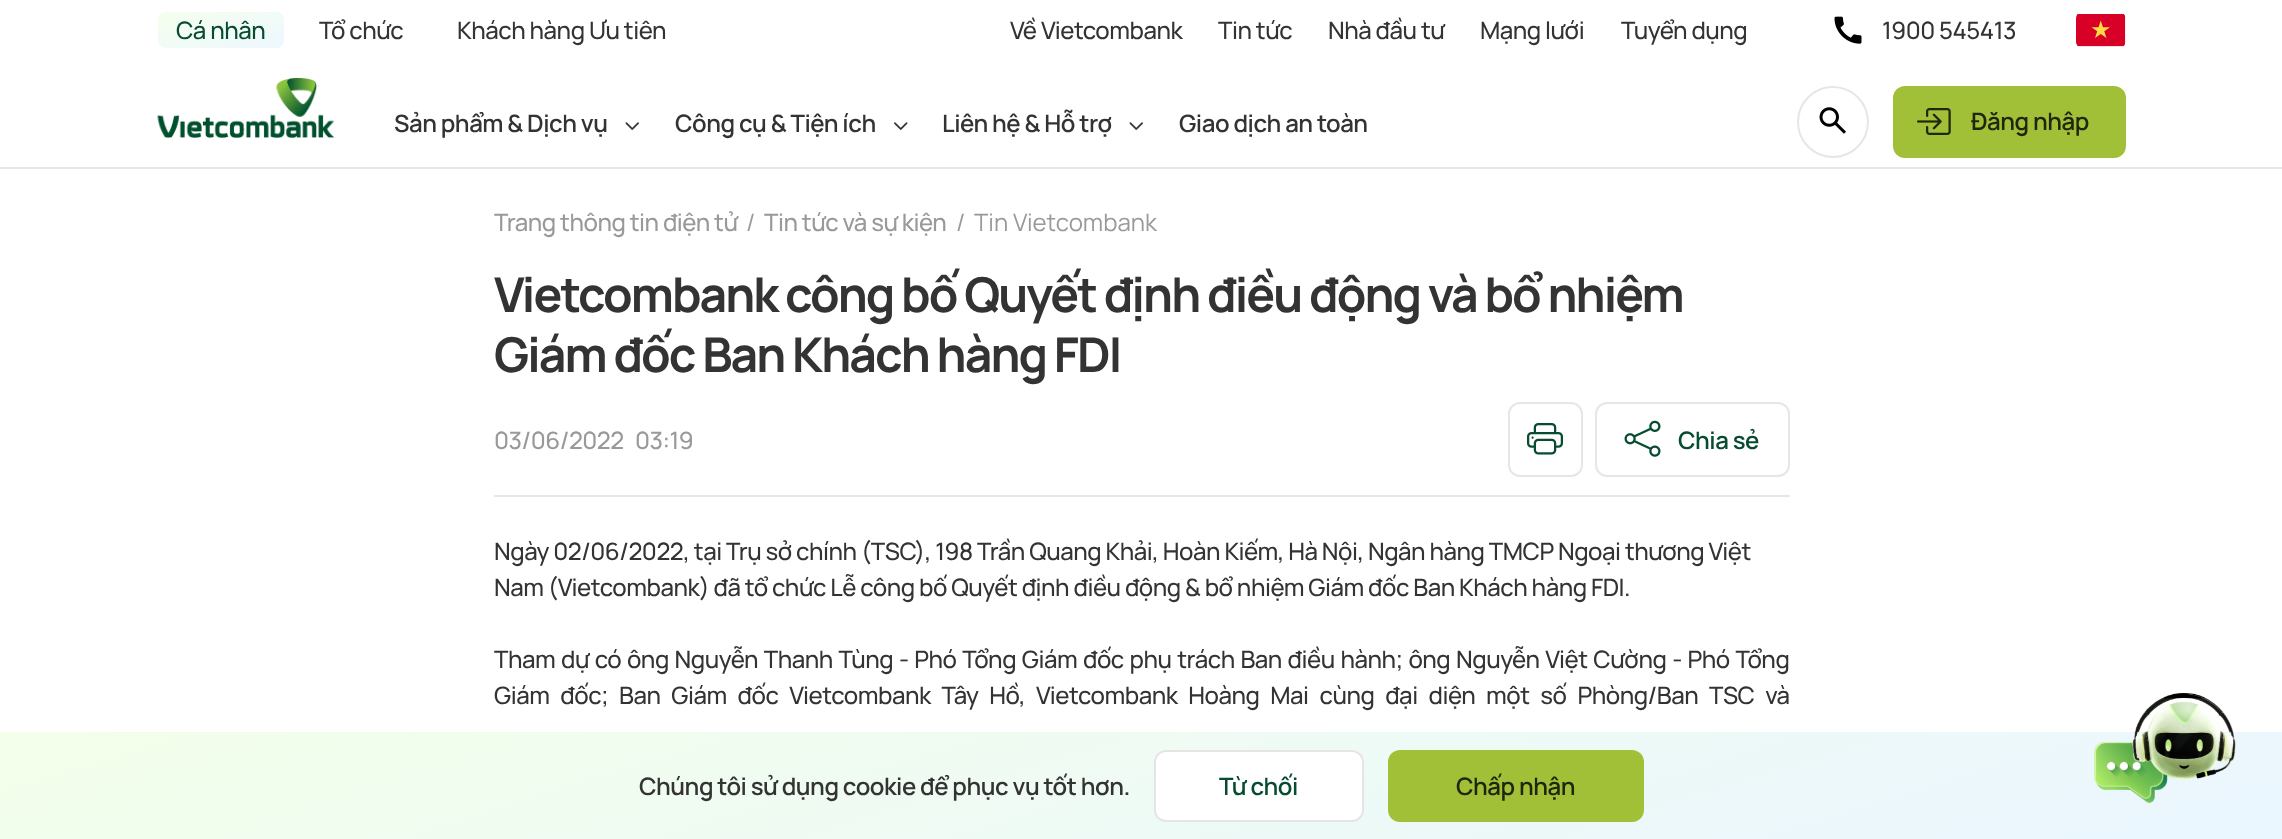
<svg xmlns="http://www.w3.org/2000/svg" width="2282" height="839">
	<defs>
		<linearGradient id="g1" gradientUnits="userSpaceOnUse" x1="231" y1="64" x2="210" y2="-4.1"><stop offset="0" stop-color="#EAF6FF" /><stop offset="1" stop-color="#F3FFE9" /></linearGradient>
		<linearGradient id="g2" gradientUnits="userSpaceOnUse" x1="1254" y1="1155" x2="1029" y2="417"><stop offset="0" stop-color="#EAF6FF" /><stop offset="1" stop-color="#F3FFE9" /></linearGradient>
	</defs>
	<rect width="100%" height="100%" fill="#FFFFFF" />
	<rect x="0" y="167" width="2282" height="2" fill="#E6E6E6" />
	<rect x="158" y="12" width="126" height="36" rx="8" fill="url(#g1)" />
	<rect x="158" y="12" width="126" height="36" rx="8" fill="#FFFFFF" fill-opacity="0.2" />
	<text x="176" y="39" font-family="Manrope" font-size="24" font-weight="500" letter-spacing="-0.48" fill="#074C31">Cá nhân</text>
	<g font-family="Manrope" font-size="24" font-weight="500" letter-spacing="-0.48" fill="#333333">
		<text x="319" y="39">Tổ chức</text>
		<text x="457" y="39">Khách hàng Ưu tiên</text>
		<text x="1010" y="39">Về Vietcombank</text>
		<text x="1218" y="39">Tin tức</text>
		<text x="1328" y="39">Nhà đầu tư</text>
		<text x="1480" y="39">Mạng lưới</text>
		<text x="1621" y="39">Tuyển dụng</text>
	</g>
	<image x="1834" y="16" width="28" height="28" href="assets/img1.png" />
	<text x="1882" y="39" font-family="Manrope" font-size="24" font-weight="500" letter-spacing="-0.48" fill="#333333">1900 545413</text>
	<image x="2076" y="14" width="50" height="33" href="assets/img2.png" />
	<image x="157" y="78" width="178" height="60" href="assets/img3.png" />
	<text x="394" y="132" font-family="Manrope" font-size="24" font-weight="600" letter-spacing="-0.48" fill="#333333">Sản phẩm &amp; Dịch vụ</text>
	<image x="625" y="122" width="14" height="8" href="assets/img4.png" />
	<text x="675" y="132" font-family="Manrope" font-size="24" font-weight="600" letter-spacing="-0.48" fill="#333333">Công cụ &amp; Tiện ích</text>
	<image x="894" y="122" width="14" height="8" href="assets/img5.png" />
	<text x="942" y="132" font-family="Manrope" font-size="24" font-weight="600" letter-spacing="-0.48" fill="#333333">Liên hệ &amp; Hỗ trợ</text>
	<image x="1129" y="122" width="14" height="8" href="assets/img4.png" />
	<text x="1179" y="132" font-family="Manrope" font-size="24" font-weight="600" letter-spacing="-0.48" fill="#333333">Giao dịch an toàn</text>
	<circle cx="1833" cy="122" r="35" fill="none" stroke="#E6E6E6" stroke-width="2" />
	<image x="1819" y="107" width="27" height="27" href="assets/img6.png" />
	<rect x="1893" y="86" width="233" height="72" rx="12" fill="#A1C038" />
	<image x="1917" y="108" width="34" height="27" href="assets/img7.png" />
	<text x="1971" y="130" font-family="Manrope" font-size="24" font-weight="600" letter-spacing="-0.48" fill="#20260B">Đăng nhập</text>
	<text x="494" y="231" font-family="Manrope" font-size="24" font-weight="500" letter-spacing="-0.48" fill="#999999">Trang thông tin điện tử</text>
	<text x="746" y="231" font-family="Manrope" font-size="24" fill="#999999">/</text>
	<text x="764" y="231" font-family="Manrope" font-size="24" font-weight="500" letter-spacing="-0.48" fill="#999999">Tin tức và sự kiện</text>
	<g font-family="Manrope" font-size="24" fill="#999999">
		<text x="956" y="231">/</text>
		<text x="974" y="231">Tin Vietcombank</text>
	</g>
	<g font-family="Manrope" font-size="48" font-weight="700" letter-spacing="-1.92" fill="#333333">
		<text x="494" y="312">Vietcombank công bố Quyết định điều động và bổ nhiệm</text>
		<text x="494" y="372">Giám đốc Ban Khách hàng FDI</text>
	</g>
	<rect x="494" y="495" width="1296" height="2" fill="#E6E6E6" />
	<g font-family="Manrope" font-size="24" font-weight="500" letter-spacing="-0.48" fill="#999999">
		<text x="494" y="449">03/06/2022</text>
		<text x="635" y="449">03:19</text>
	</g>
	<rect x="1509" y="403" width="73" height="73" rx="11" fill="none" stroke="#E6E6E6" stroke-width="2" />
	<image x="1527" y="423" width="36" height="32" href="assets/img8.png" />
	<rect x="1596" y="403" width="193" height="73" rx="11" fill="none" stroke="#E6E6E6" stroke-width="2" />
	<image x="1624" y="420" width="37" height="37" href="assets/img9.png" />
	<text x="1678" y="449" font-family="Manrope" font-size="24" font-weight="600" letter-spacing="-0.48" fill="#074C31">Chia sẻ</text>
	<g font-family="Manrope" font-size="24" font-weight="500" letter-spacing="-0.48" fill="#333333">
		<text x="494" y="560">Ngày 02/06/2022, tại Trụ sở chính (TSC), 198 Trần Quang Khải, Hoàn Kiếm, Hà Nội, Ngân hàng TMCP Ngoại thương Việt</text>
		<text x="494" y="596">Nam (Vietcombank) đã tổ chức Lễ công bố Quyết định điều động &amp; bổ nhiệm Giám đốc Ban Khách hàng FDI.</text>
		<text x="494" y="668" word-spacing="1.4">Tham dự có ông Nguyễn Thanh Tùng - Phó Tổng Giám đốc phụ trách Ban điều hành; ông Nguyễn Việt Cường - Phó Tổng</text>
		<text x="494" y="704" word-spacing="6.5">Giám đốc; Ban Giám đốc Vietcombank Tây Hồ, Vietcombank Hoàng Mai cùng đại diện một số Phòng/Ban TSC và</text>
	</g>
	<rect x="0" y="732" width="2282" height="107" fill="url(#g2)" />
	<text x="639" y="795" font-family="Manrope" font-size="24" font-weight="600" letter-spacing="-0.48" fill="#333333">Chúng tôi sử dụng cookie để phục vụ tốt hơn.</text>
	<rect x="1154" y="750" width="210" height="72" rx="12" fill="#FFFFFF" />
	<rect x="1155" y="751" width="208" height="70" rx="11" fill="none" stroke="#000000" stroke-opacity="0.1" stroke-width="2" />
	<text x="1219" y="795" font-family="Manrope" font-size="24" font-weight="600" letter-spacing="-0.48" fill="#074C31">Từ chối</text>
	<rect x="1388" y="750" width="256" height="72" rx="12" fill="#A1C038" />
	<text x="1456" y="795" font-family="Manrope" font-size="24" font-weight="600" letter-spacing="-0.48" fill="#20260B">Chấp nhận</text>
	<image x="2094" y="693" width="142" height="110" href="assets/img10.png" />
</svg>
